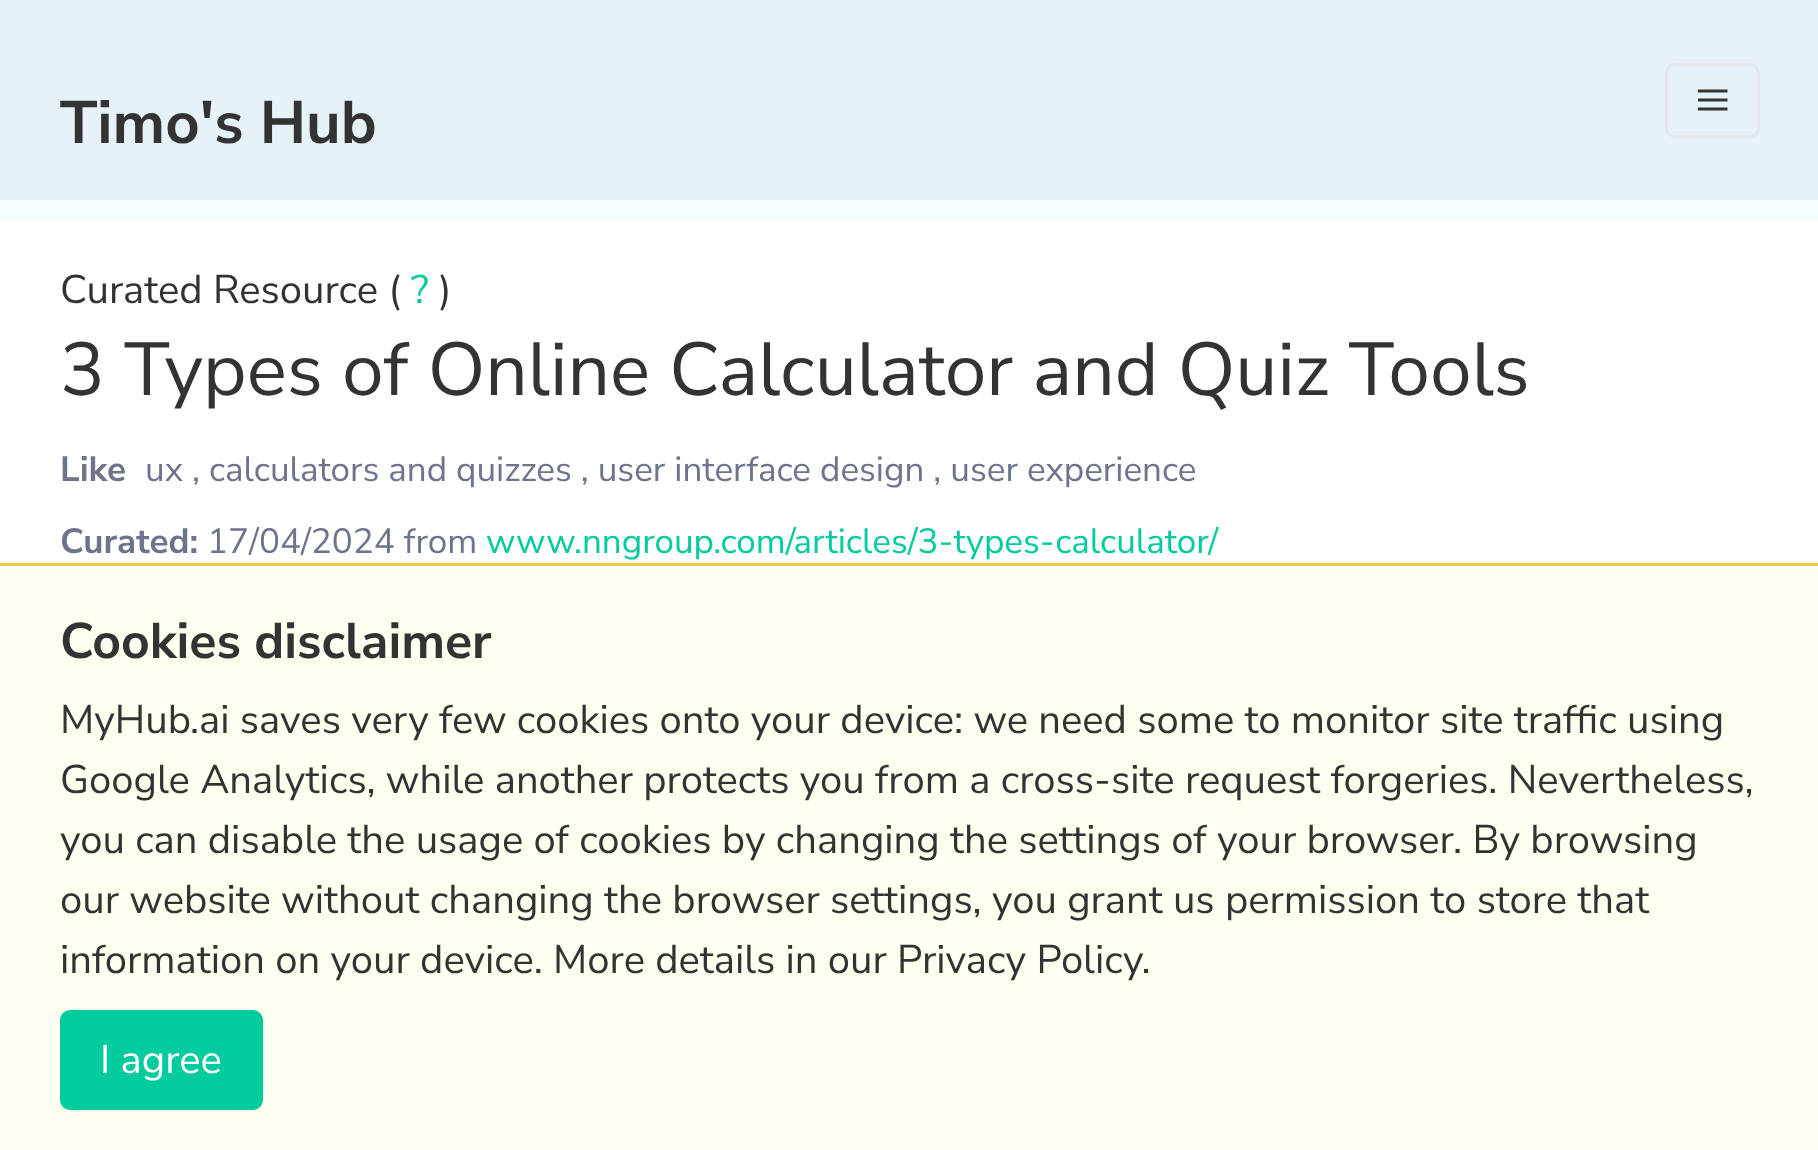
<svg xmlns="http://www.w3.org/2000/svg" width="1818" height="1150">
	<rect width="100%" height="100%" fill="#FFFFFF" />
	<rect x="0" y="0" width="1818" height="200" fill="#E6F2F7" />
	<text x="60" y="143" font-family="Nunito Sans" font-size="60" font-weight="700" fill="#333333">Timo's Hub</text>
	<rect x="1666.5" y="64.5" width="92" height="72" rx="8.5" fill="none" stroke="#E5E7EB" stroke-width="3" />
	<image x="1698" y="89" width="30" height="22" href="assets/img1.png" />
	<rect x="0" y="200" width="1818" height="20" fill="#F5FCFF" />
	<text x="60" y="303" font-family="Nunito Sans" font-size="40" fill="#333333">Curated Resource (</text>
	<text x="411" y="303" font-family="Nunito Sans" font-size="40" fill="#02CC9D">?</text>
	<text x="439" y="303" font-family="Nunito Sans" font-size="40" fill="#333333">)</text>
	<text x="60" y="395" font-family="Nunito Sans" font-size="75" fill="#333333">3 Types of Online Calculator and Quiz Tools</text>
	<text x="60" y="481" font-family="Nunito Sans" font-size="35" font-weight="700" fill="#6D748C">Like</text>
	<text x="145" y="481" font-family="Nunito Sans" font-size="35" fill="#6D748C">ux , calculators and quizzes , user interface design , user experience</text>
	<text x="60" y="553" font-family="Nunito Sans" font-size="35" font-weight="700" fill="#6D748C">Curated:</text>
	<text x="207" y="553" font-family="Nunito Sans" font-size="35" fill="#6D748C">17/04/2024 from</text>
	<text x="486" y="553" font-family="Nunito Sans" font-size="35" fill="#02CC9D">www.nngroup.com/articles/3-types-calculator/</text>
	<rect x="0" y="566" width="1818" height="584" fill="#FFFFF0" />
	<rect x="0" y="563" width="1818" height="3" fill="#ECC94B" />
	<text x="60" y="658" font-family="Nunito Sans" font-size="50" font-weight="700" fill="#333333">Cookies disclaimer</text>
	<g font-family="Nunito Sans" font-size="40" fill="#333333">
		<text x="60" y="733">MyHub.ai saves very few cookies onto your device: we need some to monitor site traffic using</text>
		<text x="60" y="793">Google Analytics, while another protects you from a cross-site request forgeries. Nevertheless,</text>
		<text x="60" y="853">you can disable the usage of cookies by changing the settings of your browser. By browsing</text>
		<text x="60" y="913">our website without changing the browser settings, you grant us permission to store that</text>
		<text x="60" y="973">information on your device. More details in our Privacy Policy.</text>
	</g>
	<rect x="60" y="1010" width="203" height="100" rx="10" fill="#02CC9D" />
	<text x="100" y="1073" font-family="Nunito Sans" font-size="40" fill="#FFFFFF">I agree</text>
</svg>
